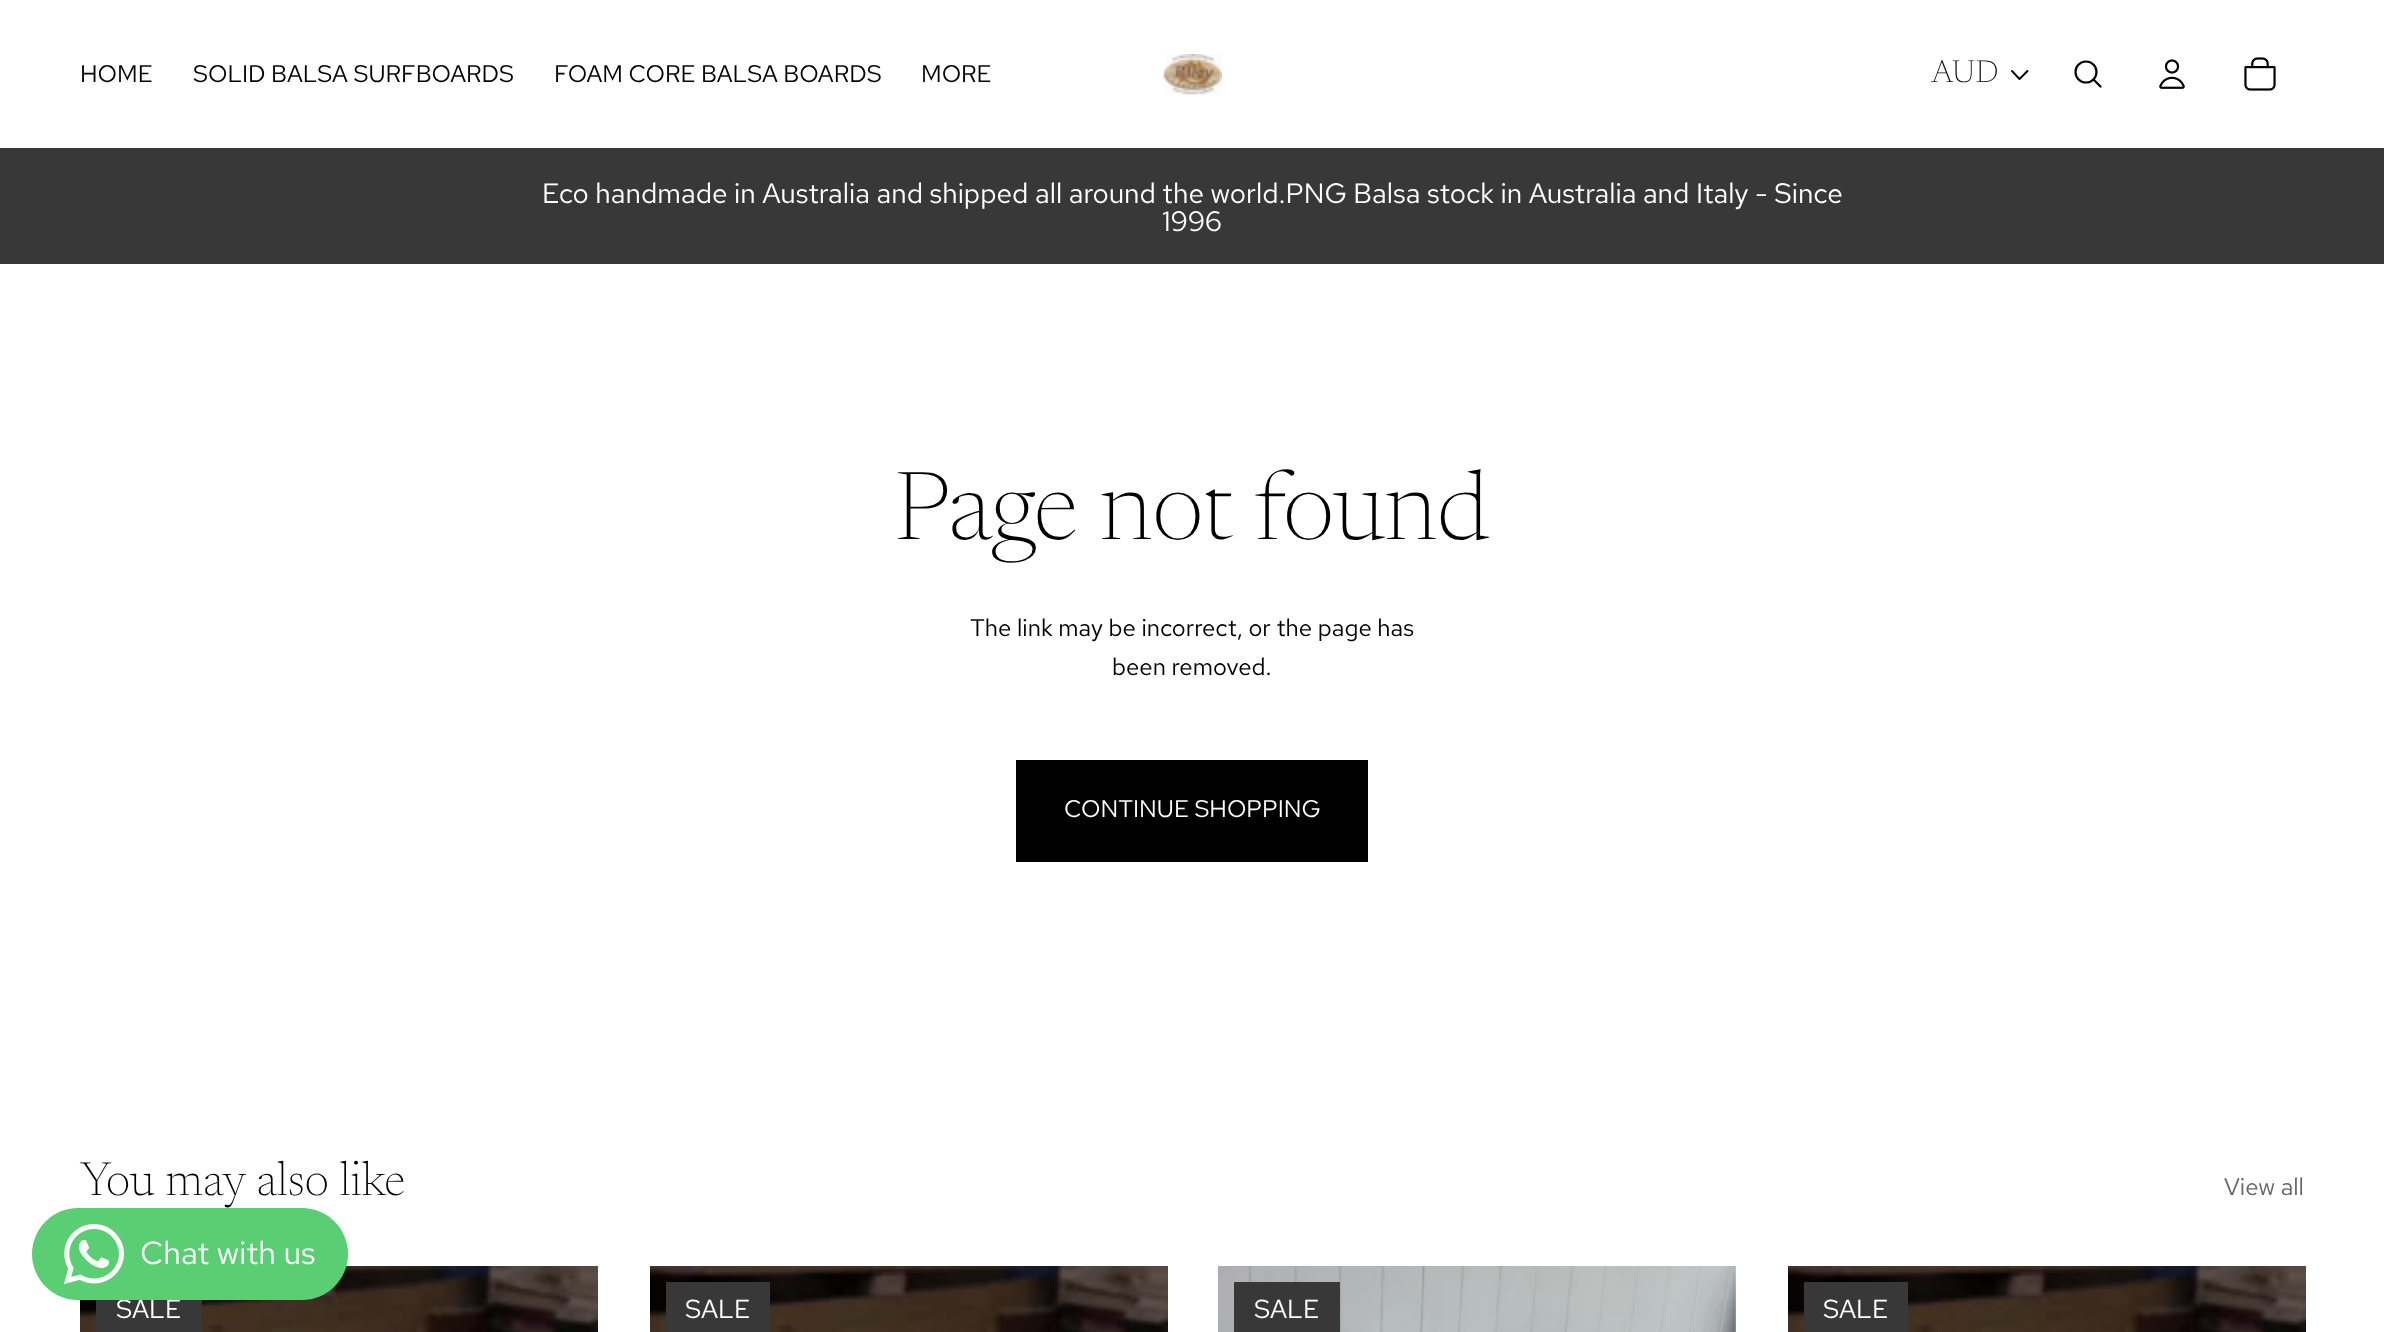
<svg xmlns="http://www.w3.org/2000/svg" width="2384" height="1332">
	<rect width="100%" height="100%" fill="#FFFFFF" />
	<g font-family="Red Hat Text" font-size="24" fill="#000000">
		<text x="80" y="82">HOME</text>
		<text x="193" y="82">SOLID BALSA SURFBOARDS</text>
		<text x="554" y="82">FOAM CORE BALSA BOARDS</text>
		<text x="921" y="82">MORE</text>
	</g>
	<image x="1163" y="54" width="59" height="41" href="assets/img1.png" />
	<text x="1931" y="82" font-family="'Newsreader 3'" font-size="32" font-weight="200" fill="#000000">AUD</text>
	<path d="M2027.5 71L2019.5 79L2012 71" fill="none" stroke="#000000" stroke-width="1.9" stroke-linecap="round" stroke-linejoin="round" />
	<circle cx="2086" cy="72" r="10.5" fill="none" stroke="#000000" stroke-width="2.2" />
	<path d="M2093.5 79.5L2100.5 86.5" fill="none" stroke="#000000" stroke-width="2.2" stroke-linecap="round" stroke-linejoin="round" />
	<image x="2159" y="59" width="26" height="30" href="assets/img2.png" />
	<image x="2244" y="57" width="32" height="34" href="assets/img3.png" />
	<rect x="0" y="148" width="2384" height="116" fill="#383838" />
	<g font-family="Red Hat Text" font-size="28" fill="#FFFFFF">
		<text x="542" y="203">Eco handmade in Australia and shipped all around the world.PNG Balsa stock in Australia and Italy - Since</text>
		<text x="1162" y="231">1996</text>
	</g>
	<text x="895" y="539" font-family="Newsreader" font-size="96" font-weight="200" fill="#000000">Page not found</text>
	<g font-family="Red Hat Text" font-size="24" fill="#000000">
		<text x="970" y="636">The link may be incorrect, or the page has</text>
		<text x="1112" y="675">been removed.</text>
	</g>
	<rect x="1016" y="760" width="352" height="102" fill="#000000" />
	<text x="1064" y="817" font-family="Red Hat Text" font-size="24" fill="#FFFFFF">CONTINUE SHOPPING</text>
	<text x="80" y="1195" font-family="'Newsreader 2'" font-size="48" font-weight="200" fill="#000000">You may also like</text>
	<text x="2224" y="1195" font-family="Red Hat Text" font-size="24" fill="#666666">View all</text>
	<image x="80" y="1266" width="518" height="66" href="assets/img4.png" />
	<rect x="96" y="1300" width="106" height="32" fill="#383838" />
	<text x="116" y="1318" font-family="Red Hat Text" font-size="26" fill="#FFFFFF">SALE</text>
	<image x="650" y="1266" width="518" height="66" href="assets/img4.png" />
	<rect x="666" y="1282" width="104" height="50" fill="#383838" />
	<text x="685" y="1318" font-family="Red Hat Text" font-size="26" fill="#FFFFFF">SALE</text>
	<image x="1218" y="1266" width="518" height="66" href="assets/img5.png" />
	<rect x="1234" y="1282" width="106" height="50" fill="#383838" />
	<text x="1254" y="1318" font-family="Red Hat Text" font-size="26" fill="#FFFFFF">SALE</text>
	<image x="1788" y="1266" width="518" height="66" href="assets/img4.png" />
	<rect x="1804" y="1282" width="104" height="50" fill="#383838" />
	<text x="1823" y="1318" font-family="Red Hat Text" font-size="26" fill="#FFFFFF">SALE</text>
	<rect x="32" y="1208" width="316" height="92" rx="46" fill="#59CE72" />
	<image x="64" y="1224" width="60" height="60" href="assets/img6.png" />
	<text x="140" y="1264" font-family="Red Hat Text" font-size="32" fill="#FFFFFF">Chat with us</text>
</svg>
